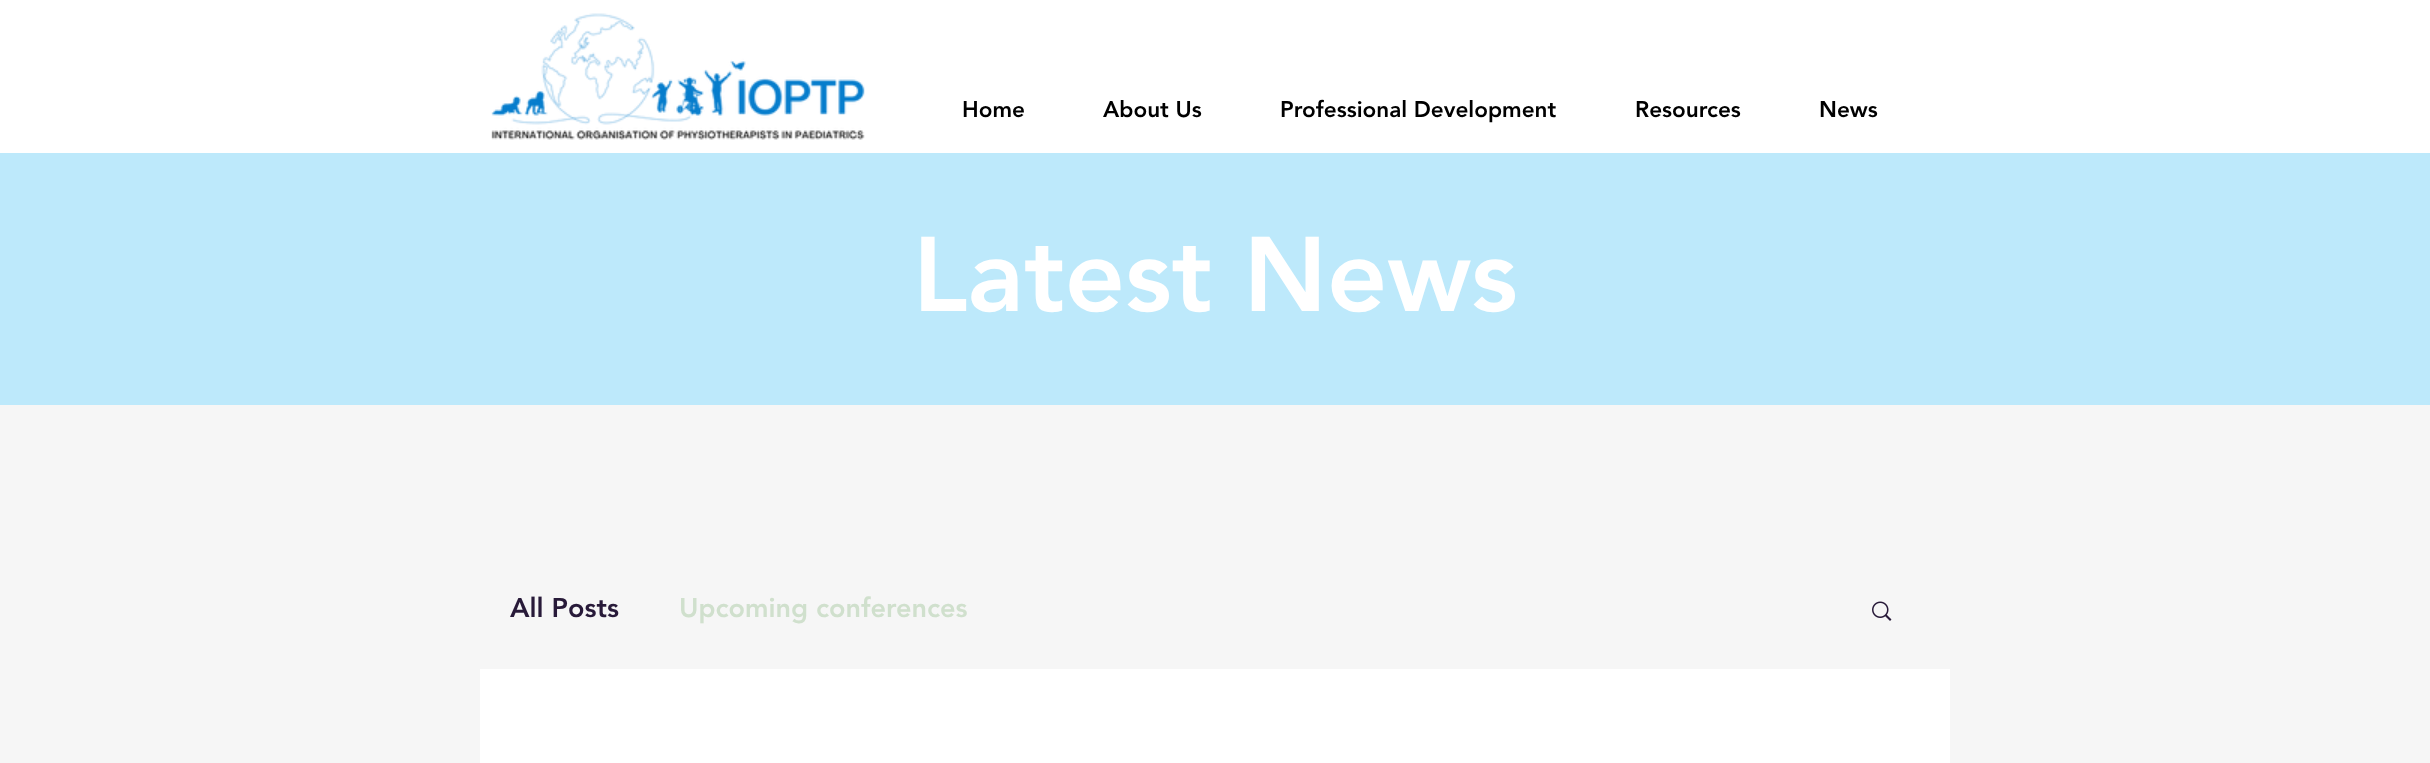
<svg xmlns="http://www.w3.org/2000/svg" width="2430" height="763">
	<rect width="100%" height="100%" fill="#F6F6F6" />
	<rect x="0" y="0" width="2430" height="153" fill="#FFFFFF" />
	<image x="491" y="13" width="374" height="127" href="assets/img1.png" />
	<g font-family="'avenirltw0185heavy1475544'" font-size="22.5" font-weight="900" fill="#000000">
		<text x="962" y="117">Home</text>
		<text x="1103" y="117">About Us</text>
		<text x="1280" y="117">Professional Development</text>
		<text x="1635" y="117">Resources</text>
		<text x="1819" y="117">News</text>
	</g>
	<rect x="0" y="153" width="2430" height="252" fill="#BDE9FB" />
	<text x="913" y="311" font-family="'avenirltw0185heavy1475544'" font-size="105" font-weight="900" fill="#FFFFFF">Latest News</text>
	<text x="510" y="617" font-family="'avenirltw0185heavy1475544'" font-size="27" font-weight="900" fill="#281A39">All Posts</text>
	<text x="679" y="617" font-family="'avenirltw0185heavy1475544'" font-size="27" font-weight="900" fill="#D0E0CD">Upcoming conferences</text>
	<image x="1872" y="601" width="20" height="20" href="assets/img2.png" />
	<rect x="480" y="669" width="1470" height="94" fill="#FFFFFF" />
</svg>
